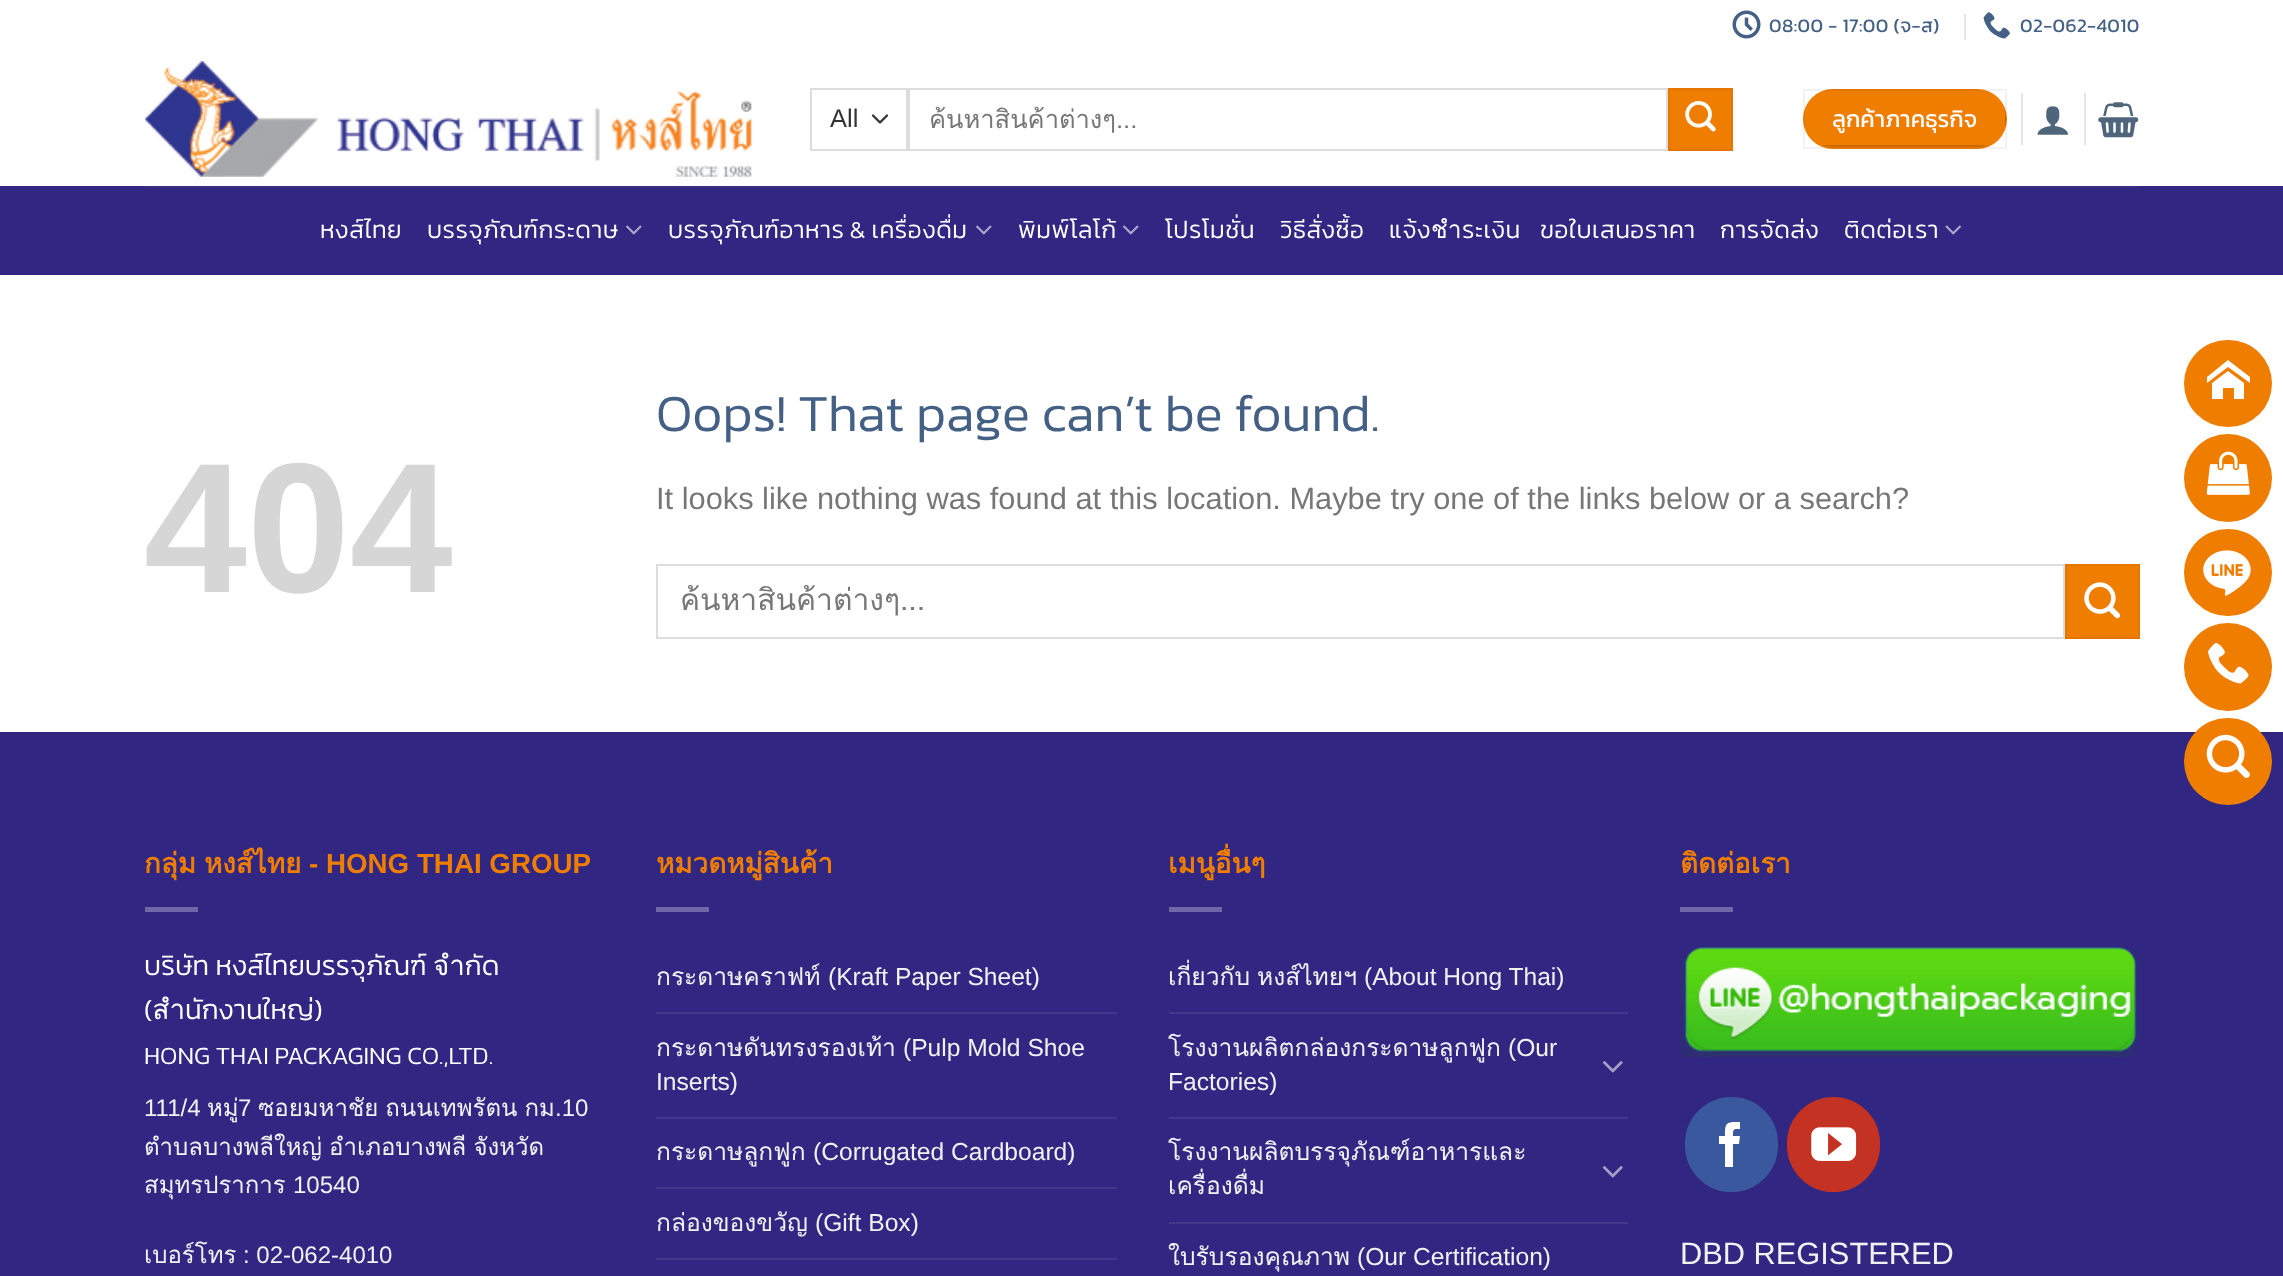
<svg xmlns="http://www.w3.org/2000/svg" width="2283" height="1276">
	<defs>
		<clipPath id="clip1"><rect x="929" y="98" width="711" height="40" /></clipPath>
		<clipPath id="clip2"><rect x="681" y="574" width="1353" height="49" /></clipPath>
	</defs>
	<rect width="100%" height="100%" fill="#FFFFFF" />
	<image x="1732" y="10" width="29" height="29" href="assets/img1.png" />
	<text x="1769" y="32" font-family="Kanit" font-size="19.25" letter-spacing="0.4" fill="#446084">08:00 - 17:00 (จ-ส)</text>
	<rect x="1964" y="14" width="2" height="26" fill="#E6E6E6" />
	<image x="1983" y="12" width="27" height="27" href="assets/img2.png" />
	<text x="2020" y="32" font-family="Kanit" font-size="19.25" letter-spacing="0.4" fill="#446084">02-062-4010</text>
	<image x="145" y="61" width="607" height="116" href="assets/img3.png" />
	<path d="M873 115.5L880 122.5L887 115.5" fill="none" stroke="#333333" stroke-width="2.3" stroke-linecap="round" stroke-linejoin="round" />
	<rect x="811" y="89" width="96" height="61" fill="none" stroke="#DDDDDD" stroke-width="2" />
	<text x="830" y="127" font-family="Liberation Sans" font-size="25.5" fill="#333333">All</text>
	<rect x="909" y="89" width="758" height="61" fill="none" stroke="#DDDDDD" stroke-width="2" />
	<g clip-path="url(#clip1)">
		<text x="929" y="128" font-family="Loma" font-size="25.5" fill="#777777">ค้นหาสินค้าต่างๆ...</text>
	</g>
	<rect x="1669" y="89" width="63" height="61" fill="#EF7D00" stroke="#E37700" stroke-width="2" />
	<image x="1685" y="100" width="31" height="32" href="assets/img4.png" />
	<rect x="1803" y="89" width="204" height="60" rx="30" fill="#EF7D00" />
	<rect x="1804" y="90" width="202" height="58" fill="none" stroke="#000000" stroke-opacity="0.05" stroke-width="2" />
	<text x="1832" y="127" font-family="Kanit" font-size="23.5" fill="#FFFFFF">ลูกค้าภาคธุรกิจ</text>
	<path d="M2005 112V126C2006 122 2006 116 2005 112ZM1988 145H1822C1825 146 1828 147 1832 147H1978C1982 147 1985 146 1988 145Z" fill="#000000" fill-opacity="0.15" fill-rule="evenodd" />
	<rect x="2021" y="93" width="2" height="52" fill="#E6E6E6" />
	<image x="2037" y="106" width="31" height="29" href="assets/img5.png" />
	<rect x="2084" y="93" width="2" height="52" fill="#E6E6E6" />
	<image x="2098" y="102" width="41" height="36" href="assets/img6.png" />
	<rect x="0" y="186" width="2283" height="89" fill="#312783" />
	<rect x="145" y="186" width="1995" height="2" fill="#382F82" />
	<g font-family="Kanit" font-size="24.6" font-weight="300" letter-spacing="0.5" fill="#FFFFFF">
		<text x="320" y="238">หงส์ไทย</text>
		<text x="427" y="238">บรรจุภัณฑ์กระดาษ</text>
	</g>
	<image x="626" y="225" width="16" height="10" href="assets/img7.png" />
	<text x="668" y="238" word-spacing="-1" font-family="Kanit" font-size="24.6" font-weight="300" letter-spacing="0.5" fill="#FFFFFF">บรรจุภัณฑ์อาหาร &amp; เครื่องดื่ม</text>
	<image x="976" y="225" width="16" height="10" href="assets/img7.png" />
	<text x="1018" y="238" font-family="Kanit" font-size="24.6" font-weight="300" letter-spacing="0.5" fill="#FFFFFF">พิมพ์โลโก้</text>
	<image x="1123" y="225" width="16" height="10" href="assets/img7.png" />
	<g font-family="Kanit" font-size="24.6" font-weight="300" letter-spacing="0.5" fill="#FFFFFF">
		<text x="1165" y="238">โปรโมชั่น</text>
		<text x="1280" y="238">วิธีสั่งซื้อ</text>
		<text x="1389" y="238">แจ้งชำระเงิน</text>
		<text x="1540" y="238">ขอใบเสนอราคา</text>
		<text x="1720" y="238">การจัดส่ง</text>
		<text x="1844" y="238">ติดต่อเรา</text>
	</g>
	<image x="1945" y="225" width="16" height="10" href="assets/img8.png" />
	<text x="144" y="592" font-family="Liberation Sans" font-size="185" font-weight="700" fill="#D6D6D6">404</text>
	<text x="656" y="431" font-family="Kanit" font-size="52.4" font-weight="300" fill="#446084">Oops! That page can’t be found.</text>
	<text x="656" y="509" font-family="Liberation Sans" font-size="30.8" fill="#777777">It looks like nothing was found at this location. Maybe try one of the links below or a search?</text>
	<rect x="657" y="565" width="1407" height="73" fill="none" stroke="#DDDDDD" stroke-width="2" />
	<g clip-path="url(#clip2)">
		<text x="680" y="610" font-family="Loma" font-size="30" fill="#777777">ค้นหาสินค้าต่างๆ...</text>
	</g>
	<rect x="2066" y="565" width="73" height="73" fill="#EF7D00" stroke="#E37700" stroke-width="2" />
	<image x="2084" y="582" width="37" height="37" href="assets/img9.png" />
	<rect x="0" y="734" width="2283" height="542" fill="#312783" />
	<rect x="0" y="732" width="2283" height="2" fill="#2F257C" />
	<g font-family="Loma" font-size="27.75" font-weight="700" fill="#EF7D00">
		<text x="144" y="873">กลุ่ม</text>
		<text x="204" y="873">หงส์ไทย</text>
	</g>
	<text x="309" y="873" font-family="Liberation Sans" font-size="27.75" font-weight="700" fill="#EF7D00">- HONG THAI GROUP</text>
	<rect x="145" y="907" width="53" height="5" fill="#6F68A8" />
	<g font-family="Kanit" font-size="27.75" font-weight="300" fill="#FFFFFF">
		<text x="144" y="975">บริษัท หงส์ไทยบรรจุภัณฑ์ จำกัด</text>
		<text x="144" y="1019">(สำนักงานใหญ่)</text>
	</g>
	<text x="144" y="1064" font-family="Kanit" font-size="25" font-weight="300" fill="#FFFFFF">HONG THAI PACKAGING CO.,LTD.</text>
	<text x="144" y="1116" font-family="Liberation Sans" font-size="24" fill="#F1F1F1">111/4</text>
	<text x="207" y="1116" font-family="Loma" font-size="24" fill="#F1F1F1">หมู่</text>
	<text x="238" y="1116" font-family="Liberation Sans" font-size="24" fill="#F1F1F1">7</text>
	<text x="258" y="1116" word-spacing="-1" font-family="Loma" font-size="24" fill="#F1F1F1">ซอยมหาชัย ถนนเทพรัตน กม</text>
	<text x="555" y="1116" font-family="Liberation Sans" font-size="24" fill="#F1F1F1">.10</text>
	<g font-family="Loma" font-size="24" fill="#F1F1F1">
		<text x="144" y="1155" word-spacing="-1">ตำบลบางพลีใหญ่ อำเภอบางพลี จังหวัด</text>
		<text x="144" y="1193">สมุทรปราการ</text>
	</g>
	<text x="293" y="1193" font-family="Liberation Sans" font-size="24" fill="#F1F1F1">10540</text>
	<text x="144" y="1263" font-family="Loma" font-size="24" fill="#F1F1F1">เบอร์โทร</text>
	<text x="243" y="1263" font-family="Liberation Sans" font-size="24" fill="#F1F1F1">: 02-062-4010</text>
	<text x="656" y="873" font-family="Loma" font-size="27.75" font-weight="700" fill="#EF7D00">หมวดหมู่สินค้า</text>
	<rect x="656" y="907" width="53" height="5" fill="#6F68A8" />
	<text x="656" y="985" font-family="Loma" font-size="24.6" fill="#F1F1F1">กระดาษคราฟท์</text>
	<text x="828" y="985" font-family="Liberation Sans" font-size="24.6" fill="#F1F1F1">(Kraft Paper Sheet)</text>
	<rect x="656" y="1012" width="461" height="2" fill="#41388D" />
	<text x="656" y="1056" font-family="Loma" font-size="24.6" fill="#F1F1F1">กระดาษดันทรงรองเท้า</text>
	<g font-family="Liberation Sans" font-size="24.6" fill="#F1F1F1">
		<text x="903" y="1056">(Pulp Mold Shoe</text>
		<text x="656" y="1090">Inserts)</text>
	</g>
	<rect x="656" y="1117" width="461" height="2" fill="#41388D" />
	<text x="656" y="1160" font-family="Loma" font-size="24.6" fill="#F1F1F1">กระดาษลูกฟูก</text>
	<text x="813" y="1160" font-family="Liberation Sans" font-size="24.6" fill="#F1F1F1">(Corrugated Cardboard)</text>
	<rect x="656" y="1187" width="461" height="2" fill="#41388D" />
	<text x="656" y="1231" font-family="Loma" font-size="24.6" fill="#F1F1F1">กล่องของขวัญ</text>
	<text x="815" y="1231" font-family="Liberation Sans" font-size="24.6" fill="#F1F1F1">(Gift Box)</text>
	<rect x="656" y="1258" width="461" height="2" fill="#41388D" />
	<text x="1168" y="873" font-family="Loma" font-size="27.75" font-weight="700" fill="#EF7D00">เมนูอื่นๆ</text>
	<rect x="1169" y="907" width="53" height="5" fill="#6F68A8" />
	<g font-family="Loma" font-size="24.6" fill="#F1F1F1">
		<text x="1168" y="985">เกี่ยวกับ</text>
		<text x="1257" y="985">หงส์ไทยฯ</text>
	</g>
	<text x="1364" y="985" font-family="Liberation Sans" font-size="24.6" fill="#F1F1F1">(About Hong Thai)</text>
	<rect x="1169" y="1012" width="459" height="2" fill="#41388D" />
	<text x="1168" y="1056" font-family="Loma" font-size="24.6" fill="#F1F1F1">โรงงานผลิตกล่องกระดาษลูกฟูก</text>
	<g font-family="Liberation Sans" font-size="24.6" fill="#F1F1F1">
		<text x="1508" y="1056">(Our</text>
		<text x="1168" y="1090">Factories)</text>
	</g>
	<image x="1602" y="1061" width="21" height="12" href="assets/img10.png" />
	<rect x="1169" y="1117" width="459" height="2" fill="#41388D" />
	<g font-family="Loma" font-size="24.6" fill="#F1F1F1">
		<text x="1168" y="1160">โรงงานผลิตบรรจุภัณฑ์อาหารและ</text>
		<text x="1168" y="1194">เครื่องดื่ม</text>
	</g>
	<image x="1602" y="1166" width="21" height="12" href="assets/img10.png" />
	<rect x="1169" y="1222" width="459" height="2" fill="#41388D" />
	<text x="1168" y="1265" font-family="Loma" font-size="24.6" fill="#F1F1F1">ใบรับรองคุณภาพ</text>
	<text x="1357" y="1265" font-family="Liberation Sans" font-size="24.6" fill="#F1F1F1">(Our Certification)</text>
	<text x="1680" y="873" font-family="Loma" font-size="27.75" font-weight="700" fill="#EF7D00">ติดต่อเรา</text>
	<rect x="1680" y="907" width="53" height="5" fill="#6F68A8" />
	<image x="1680" y="947" width="460" height="110" href="assets/img11.png" />
	<rect x="1686" y="1098" width="91" height="93" rx="45.5" fill="#3A589D" stroke="#3A589D" stroke-width="2" />
	<path d="M1733 1167H1725V1144H1719V1136H1725C1725 1122 1726 1122 1740 1122V1129C1733 1129 1733 1129 1733 1136H1740L1739 1144H1733Z" fill="#FFFFFF" />
	<rect x="1788" y="1098" width="91" height="93" rx="45.5" fill="#C33223" stroke="#C33223" stroke-width="2" />
	<image x="1811" y="1127" width="46" height="34" href="assets/img12.png" />
	<text x="1680" y="1264" font-family="Liberation Sans" font-size="30.8" fill="#F1F1F1">DBD REGISTERED</text>
	<rect x="2184" y="340" width="88" height="87" rx="43.5" fill="#EF7D00" />
	<path d="M2250 383L2228 367L2207 383V377L2228 360L2250 377ZM2244 383V399H2234V388H2223V399H2212V383L2228 371Z" fill="#FFFFFF" />
	<circle cx="2228" cy="478" r="44" fill="#EF7D00" />
	<image x="2206" y="451" width="44" height="44" href="assets/img13.png" />
	<rect x="2184" y="529" width="88" height="87" rx="43.5" fill="#EF7D00" />
	<image x="2203" y="550" width="48" height="46" href="assets/img14.png" />
	<circle cx="2228" cy="667" r="44" fill="#EF7D00" />
	<image x="2208" y="643" width="41" height="41" href="assets/img15.png" />
	<rect x="2184" y="718" width="88" height="87" rx="43.5" fill="#EF7D00" />
	<image x="2206" y="734" width="44" height="44" href="assets/img16.png" />
</svg>
